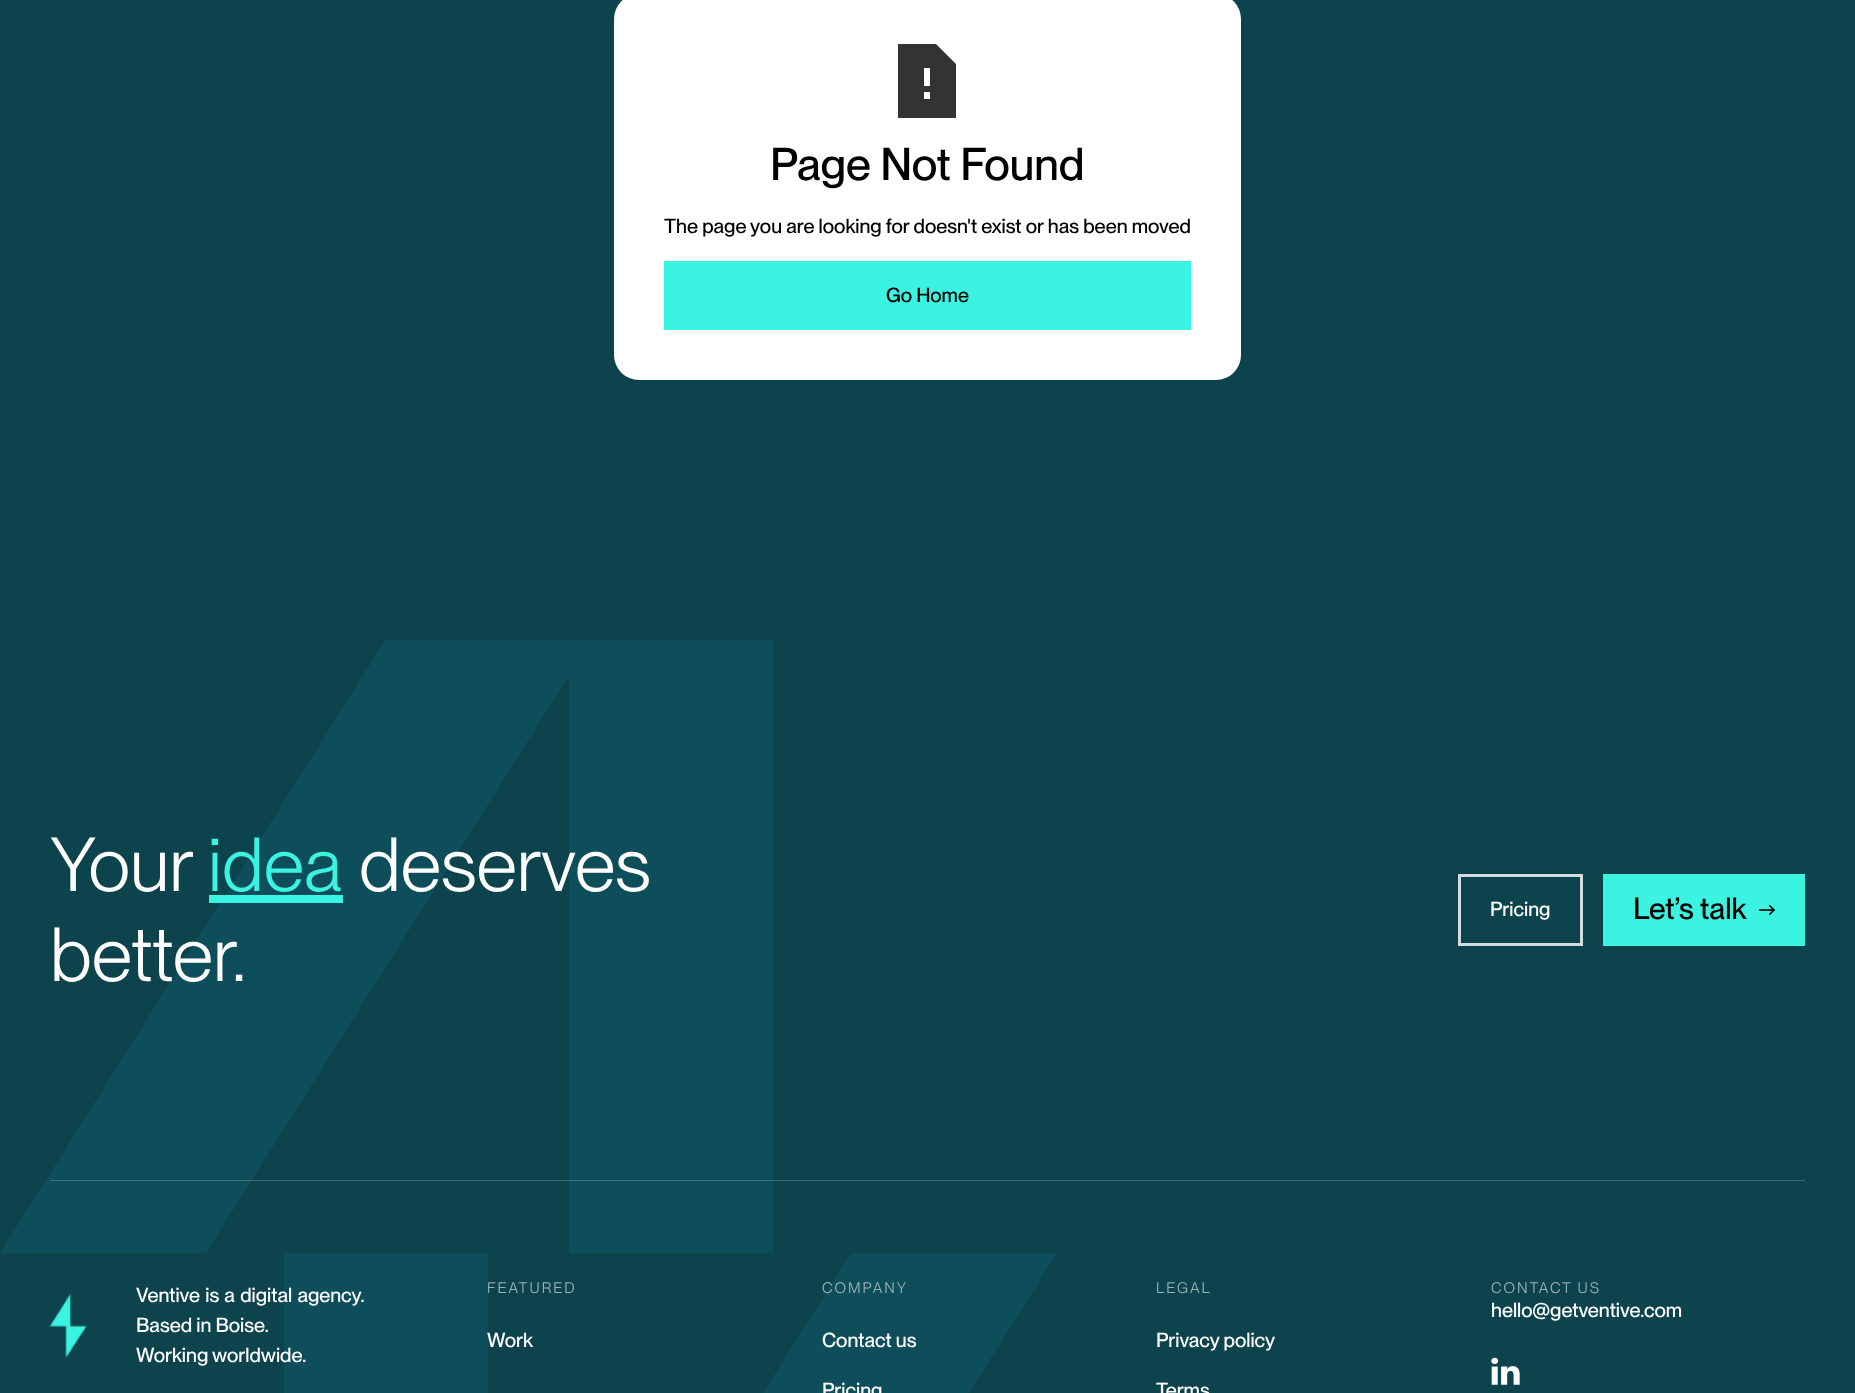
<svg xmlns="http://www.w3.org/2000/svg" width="1855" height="1393">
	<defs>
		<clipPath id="clip1"><rect x="0" y="640" width="1058" height="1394" /></clipPath>
	</defs>
	<rect width="100%" height="100%" fill="#0C434D" />
	<rect x="614" y="-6" width="627" height="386" rx="25" fill="#FFFFFF" />
	<path d="M898 44H936L956 64V118H898ZM924 68H930V86H924ZM924 92H930V99H924Z" fill="#333333" fill-rule="evenodd" />
	<text x="770" y="180" font-family="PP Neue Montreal" font-size="45" font-weight="500" fill="#000000">Page Not Found</text>
	<text x="664" y="233" font-family="PP Neue Montreal" font-size="20" font-weight="500" fill="#000000">The page you are looking for doesn't exist or has been moved</text>
	<rect x="664" y="261" width="527" height="69" fill="#3AF3E1" />
	<text x="886" y="302" font-family="PP Neue Montreal" font-size="20" font-weight="500" fill="#000000">Go Home</text>
	<rect x="284" y="1253" width="204" height="140" fill="#0D4E5A" />
	<path d="M851 1253H1057L490 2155H284Z" fill="#0D4E5A" />
	<rect x="569" y="640" width="204" height="613" fill="#0D4E5A" />
	<g clip-path="url(#clip1)">
		<path d="M206 1253H0L567 351H773Z" fill="#0D4E5A" />
	</g>
	<rect x="50" y="1180" width="1755" height="1" fill="#FFFFFF" fill-opacity="0.21" />
	<text x="50" y="891" font-family="PP Neue Montreal" font-size="75" fill="#FFFFFF">Your</text>
	<text x="208" y="891" font-family="PP Neue Montreal" font-size="75" fill="#3AF3E1">idea</text>
	<rect x="209" y="895" width="134" height="8" fill="#3AF3E1" />
	<g font-family="PP Neue Montreal" font-size="75" fill="#FFFFFF">
		<text x="359" y="891">deserves</text>
		<text x="50" y="981">better.</text>
	</g>
	<rect x="1459.5" y="875.5" width="122" height="69" fill="none" stroke="#D3DDDE" stroke-width="3" />
	<text x="1490" y="916" font-family="PP Neue Montreal" font-size="20" font-weight="500" fill="#FFFFFF">Pricing</text>
	<rect x="1603" y="874" width="202" height="72" fill="#3AF3E1" />
	<text x="1633" y="919" font-family="PP Neue Montreal" font-size="30" font-weight="500" fill="#000000">Let’s talk</text>
	<image x="1759" y="905" width="16" height="10" href="assets/img1.png" />
	<image x="50" y="1294" width="37" height="64" href="assets/img2.png" />
	<g font-family="PP Neue Montreal" font-size="20" font-weight="500" fill="#FFFFFF">
		<text x="136" y="1302" word-spacing="1">Ventive is a digital agency.</text>
		<text x="136" y="1332">Based in Boise.</text>
		<text x="136" y="1362">‍Working worldwide.</text>
	</g>
	<text x="487" y="1293" font-family="PP Neue Montreal" font-size="15" letter-spacing="2" fill="#9EB4B8">FEATURED</text>
	<text x="487" y="1347" font-family="PP Neue Montreal" font-size="20" font-weight="500" fill="#FFFFFF">Work</text>
	<text x="822" y="1293" font-family="PP Neue Montreal" font-size="15" letter-spacing="2" fill="#9EB4B8">COMPANY</text>
	<g font-family="PP Neue Montreal" font-size="20" font-weight="500" fill="#FFFFFF">
		<text x="822" y="1347">Contact us</text>
		<text x="822" y="1397">Pricing</text>
	</g>
	<text x="1156" y="1293" font-family="PP Neue Montreal" font-size="15" letter-spacing="2" fill="#9EB4B8">LEGAL</text>
	<g font-family="PP Neue Montreal" font-size="20" font-weight="500" fill="#FFFFFF">
		<text x="1156" y="1347">Privacy policy</text>
		<text x="1156" y="1397">Terms</text>
	</g>
	<text x="1491" y="1293" font-family="PP Neue Montreal" font-size="15" letter-spacing="2" fill="#9EB4B8">CONTACT US</text>
	<text x="1491" y="1317" font-family="PP Neue Montreal" font-size="20" font-weight="500" fill="#FFFFFF">hello@getventive.com</text>
	<image x="1491" y="1357" width="29" height="28" href="assets/img3.png" />
</svg>
